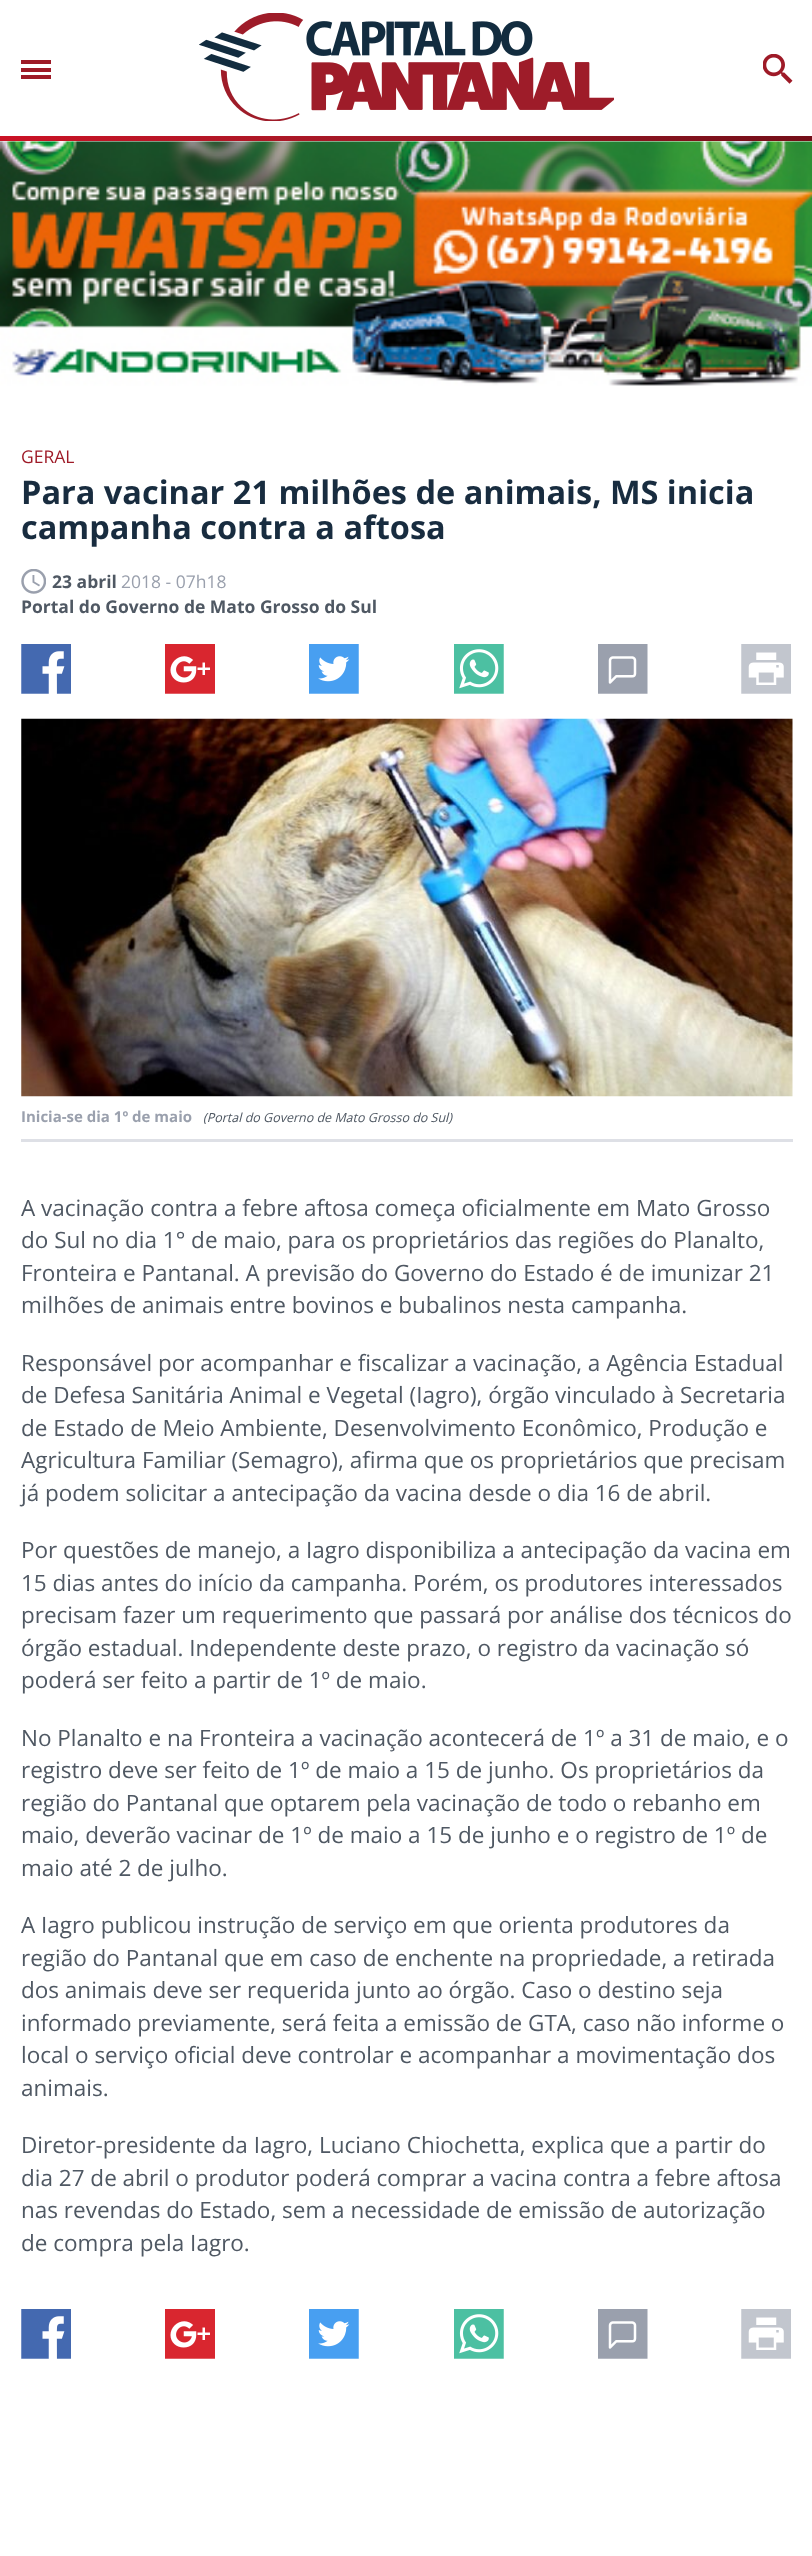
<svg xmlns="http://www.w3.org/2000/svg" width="812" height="2556">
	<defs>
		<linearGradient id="g1" gradientUnits="userSpaceOnUse" x1="0" y1="139" x2="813" y2="139"><stop offset="0" stop-color="#CB1225" /><stop offset="0.5" stop-color="#9E1A27" /><stop offset="1" stop-color="#740E18" /></linearGradient>
	</defs>
	<rect width="100%" height="100%" fill="#FFFFFF" />
	<rect x="21" y="68" width="30" height="4" fill="#9E1A27" />
	<rect x="21" y="60" width="30" height="4" fill="#9E1A27" />
	<rect x="21" y="75" width="30" height="4" fill="#9E1A27" />
	<image x="199" y="13" width="415" height="108" href="assets/img1.png" />
	<image x="763" y="54" width="30" height="30" href="assets/img2.png" />
	<rect x="0" y="136" width="812" height="5" fill="url(#g1)" />
	<image x="0" y="141" width="812" height="245" href="assets/img3.png" />
	<text x="21" y="463" font-family="Open Sans" font-size="17.5" fill="#9E1A27">GERAL</text>
	<g font-family="Open Sans" font-size="32.5" font-weight="700" fill="#182C3F">
		<text x="21" y="504">Para vacinar 21 milhões de animais, MS inicia</text>
		<text x="21" y="539">campanha contra a aftosa</text>
	</g>
	<image x="21" y="569" width="25" height="25" href="assets/img4.png" />
	<text x="52" y="588" font-family="Open Sans" font-size="17.5" font-weight="700" fill="#4F5863">23 abril</text>
	<text x="121" y="588" font-family="Open Sans" font-size="17.5" fill="#9AA0AD">2018 - 07h18</text>
	<text x="21" y="613" font-family="Open Sans" font-size="17.5" font-weight="700" fill="#4F5863">Portal do Governo de Mato Grosso do Sul</text>
	<image x="21" y="644" width="50" height="50" href="assets/img5.png" />
	<image x="165" y="644" width="50" height="50" href="assets/img6.png" />
	<image x="309" y="644" width="50" height="50" href="assets/img7.png" />
	<image x="454" y="644" width="50" height="50" href="assets/img8.png" />
	<image x="598" y="644" width="50" height="50" href="assets/img9.png" />
	<image x="741" y="644" width="50" height="50" href="assets/img10.png" />
	<image x="21" y="718" width="772" height="379" href="assets/img11.png" />
	<rect x="21" y="1139" width="772" height="3" fill="#DEE0E6" />
	<text x="21" y="1122" font-family="Open Sans" font-size="15" font-weight="700" fill="#9AA0AD">Inicia-se dia 1º de maio</text>
	<text x="203" y="1122" font-family="Open Sans" font-size="12.5" font-style="italic" fill="#4F5863">(Portal do Governo de Mato Grosso do Sul)</text>
	<g font-family="Open Sans" font-size="22.5" fill="#4F5863">
		<text x="21" y="1216">A vacinação contra a febre aftosa começa oficialmente em Mato Grosso</text>
		<text x="21" y="1248">do Sul no dia 1° de maio, para os proprietários das regiões do Planalto,</text>
		<text x="21" y="1281">Fronteira e Pantanal. A previsão do Governo do Estado é de imunizar 21</text>
		<text x="21" y="1313">milhões de animais entre bovinos e bubalinos nesta campanha.</text>
		<text x="21" y="1371">Responsável por acompanhar e fiscalizar a vacinação, a Agência Estadual</text>
		<text x="21" y="1403">de Defesa Sanitária Animal e Vegetal (Iagro), órgão vinculado à Secretaria</text>
		<text x="21" y="1436">de Estado de Meio Ambiente, Desenvolvimento Econômico, Produção e</text>
		<text x="21" y="1468">Agricultura Familiar (Semagro), afirma que os proprietários que precisam</text>
		<text x="21" y="1501">já podem solicitar a antecipação da vacina desde o dia 16 de abril.</text>
		<text x="21" y="1558">Por questões de manejo, a Iagro disponibiliza a antecipação da vacina em</text>
		<text x="21" y="1591">15 dias antes do início da campanha. Porém, os produtores interessados</text>
		<text x="21" y="1623">precisam fazer um requerimento que passará por análise dos técnicos do</text>
		<text x="21" y="1656">órgão estadual. Independente deste prazo, o registro da vacinação só</text>
		<text x="21" y="1688">poderá ser feito a partir de 1º de maio.</text>
		<text x="21" y="1746">No Planalto e na Fronteira a vacinação acontecerá de 1º a 31 de maio, e o</text>
		<text x="21" y="1778">registro deve ser feito de 1º de maio a 15 de junho. Os proprietários da</text>
		<text x="21" y="1811">região do Pantanal que optarem pela vacinação de todo o rebanho em</text>
		<text x="21" y="1843">maio, deverão vacinar de 1º de maio a 15 de junho e o registro de 1º de</text>
		<text x="21" y="1876">maio até 2 de julho.</text>
		<text x="21" y="1933">A Iagro publicou instrução de serviço em que orienta produtores da</text>
		<text x="21" y="1966">região do Pantanal que em caso de enchente na propriedade, a retirada</text>
		<text x="21" y="1998">dos animais deve ser requerida junto ao órgão. Caso o destino seja</text>
		<text x="21" y="2031">informado previamente, será feita a emissão de GTA, caso não informe o</text>
		<text x="21" y="2063">local o serviço oficial deve controlar e acompanhar a movimentação dos</text>
		<text x="21" y="2096">animais.</text>
		<text x="21" y="2153">Diretor-presidente da Iagro, Luciano Chiochetta, explica que a partir do</text>
		<text x="21" y="2186">dia 27 de abril o produtor poderá comprar a vacina contra a febre aftosa</text>
		<text x="21" y="2218">nas revendas do Estado, sem a necessidade de emissão de autorização</text>
		<text x="21" y="2251">de compra pela Iagro.</text>
	</g>
	<image x="21" y="2309" width="50" height="50" href="assets/img5.png" />
	<image x="165" y="2309" width="50" height="50" href="assets/img6.png" />
	<image x="309" y="2309" width="50" height="50" href="assets/img7.png" />
	<image x="454" y="2309" width="50" height="50" href="assets/img8.png" />
	<image x="598" y="2309" width="50" height="50" href="assets/img9.png" />
	<image x="741" y="2309" width="50" height="50" href="assets/img10.png" />
</svg>
